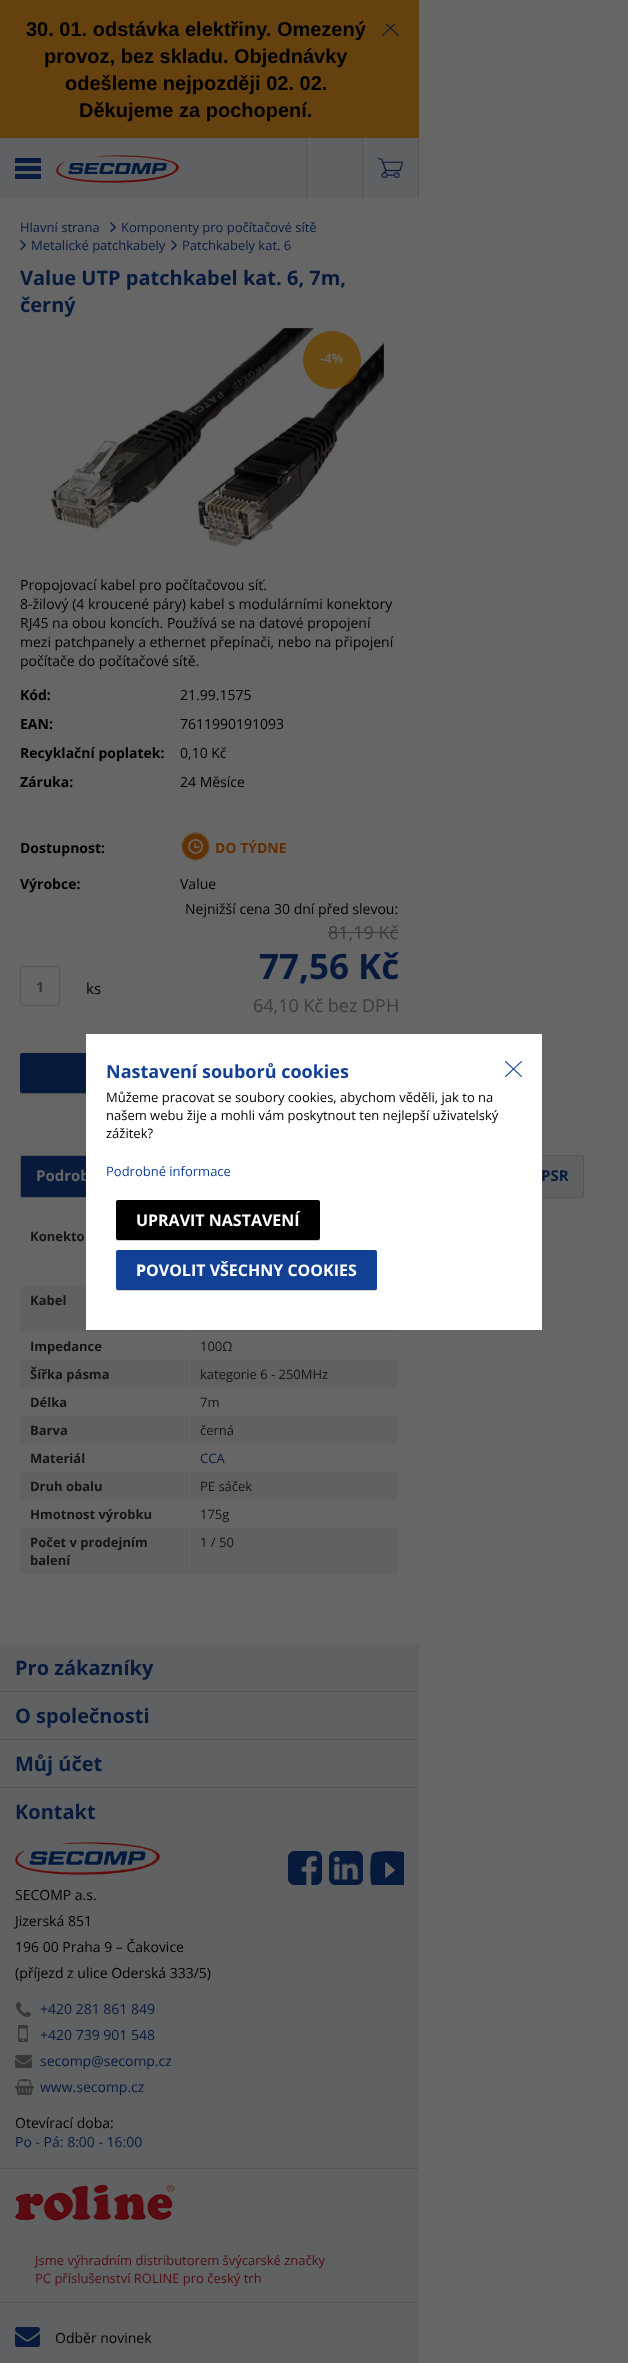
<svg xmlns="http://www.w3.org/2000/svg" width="628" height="2363">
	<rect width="100%" height="100%" fill="#666666" />
	<rect x="0" y="0" width="419" height="138" fill="#64410E" />
	<g font-family="Liberation Sans" font-size="20" font-weight="700" fill="#000000">
		<text x="26" y="36">30. 01. odstávka elektřiny. Omezený</text>
		<text x="44" y="63">provoz, bez skladu. Objednávky</text>
		<text x="65" y="90">odešleme nejpozději 02. 02.</text>
		<text x="79" y="117">Děkujeme za pochopení.</text>
	</g>
	<image x="382" y="24" width="17" height="12" href="assets/img1.png" />
	<rect x="0" y="138" width="418" height="60" fill="#606162" />
	<rect x="15" y="158" width="26" height="5" fill="#071A3C" />
	<rect x="15" y="166" width="26" height="5" fill="#071A3C" />
	<rect x="15" y="174" width="26" height="5" fill="#071A3C" />
	<image x="56" y="155" width="123" height="28" href="assets/img2.png" />
	<rect x="362" y="138" width="1" height="60" fill="#555656" />
	<rect x="306" y="138" width="1" height="60" fill="#555656" />
	<rect x="418" y="138" width="1" height="60" fill="#555656" />
	<image x="378" y="158" width="25" height="20" href="assets/img3.png" />
	<text x="20" y="232" font-family="Open Sans" font-size="13" fill="#071A3C">Hlavní strana</text>
	<image x="110" y="222" width="6" height="11" href="assets/img4.png" />
	<text x="121" y="232" font-family="Open Sans" font-size="13" fill="#071A3C">Komponenty pro počítačové sítě</text>
	<image x="20" y="240" width="6" height="11" href="assets/img4.png" />
	<text x="31" y="250" font-family="Open Sans" font-size="13" fill="#071A3C">Metalické patchkabely</text>
	<image x="171" y="240" width="6" height="11" href="assets/img4.png" />
	<text x="182" y="250" font-family="Open Sans" font-size="13" fill="#071A3C">Patchkabely kat. 6</text>
	<g font-family="Open Sans" font-size="20" font-weight="700" fill="#071A3C">
		<text x="20" y="285">Value UTP patchkabel kat. 6, 7m,</text>
		<text x="20" y="312">černý</text>
	</g>
	<image x="47" y="328" width="337" height="221" href="assets/img5.png" />
	<circle cx="332" cy="360" r="29" fill="#664200" fill-opacity="0.81" />
	<text x="320" y="363" font-family="Open Sans" font-size="13" font-weight="700" fill="#666666">-4%</text>
	<g font-family="Open Sans" font-size="14" fill="#000000">
		<text x="20" y="590">Propojovací kabel pro počítačovou síť.</text>
		<text x="20" y="609">8-žilový (4 kroucené páry) kabel s modulárními konektory</text>
		<text x="20" y="628">RJ45 na obou koncích. Používá se na datové propojení</text>
		<text x="20" y="647">mezi patchpanely a ethernet přepínači, nebo na připojení</text>
		<text x="20" y="666">počítače do počítačové sítě.</text>
	</g>
	<text x="20" y="700" font-family="Open Sans" font-size="14" font-weight="700" fill="#000000">Kód:</text>
	<text x="180" y="700" font-family="Open Sans" font-size="14" fill="#000000">21.99.1575</text>
	<text x="20" y="729" font-family="Open Sans" font-size="14" font-weight="700" fill="#000000">EAN:</text>
	<text x="180" y="729" font-family="Open Sans" font-size="14" fill="#000000">7611990191093</text>
	<text x="20" y="758" font-family="Open Sans" font-size="14" font-weight="700" fill="#000000">Recyklační poplatek:</text>
	<text x="180" y="758" font-family="Open Sans" font-size="14" fill="#000000">0,10 Kč</text>
	<text x="20" y="787" font-family="Open Sans" font-size="14" font-weight="700" fill="#000000">Záruka:</text>
	<text x="180" y="787" font-family="Open Sans" font-size="14" fill="#000000">24 Měsíce</text>
	<text x="20" y="853" font-family="Open Sans" font-size="14" font-weight="700" fill="#000000">Dostupnost:</text>
	<image x="181" y="832" width="29" height="29" href="assets/img6.png" />
	<text x="215" y="853" font-family="Open Sans" font-size="14" font-weight="700" fill="#602D00">DO TÝDNE</text>
	<text x="20" y="889" font-family="Open Sans" font-size="14" font-weight="700" fill="#000000">Výrobce:</text>
	<g font-family="Open Sans" font-size="14" fill="#000000">
		<text x="180" y="889">Value</text>
		<text x="185" y="914">Nejnižší cena 30 dní před slevou:</text>
	</g>
	<text x="328" y="939" font-family="Open Sans" font-size="18" fill="#3B3B3B">81,19 Kč</text>
	<rect x="328" y="932" width="70" height="1" fill="#3B3B3B" />
	<text x="259" y="979" font-family="Open Sans" font-size="35" font-weight="700" fill="#071A3C">77,56 Kč</text>
	<rect x="20.5" y="966.5" width="39" height="39" rx="3.5" fill="none" stroke="#555656" />
	<text x="36" y="992" font-family="Open Sans" font-size="14" font-weight="700" fill="#353535">1</text>
	<text x="86" y="994" font-family="Open Sans" font-size="15" fill="#000000">ks</text>
	<rect x="20" y="1054" width="379" height="40" rx="2" fill="#000000" fill-opacity="0.2" filter="blur(0.5px)" />
	<rect x="20" y="1053" width="379" height="40" rx="2" fill="#071A3C" />
	<text x="253" y="1012" font-family="Open Sans" font-size="18" fill="#3B3B3B">64,10 Kč bez DPH</text>
	<rect x="20.5" y="1155.5" width="210" height="42" rx="1.5" fill="#071A3C" stroke="#555656" />
	<text x="36" y="1181" font-family="Open Sans" font-size="15" font-weight="700" fill="#666666">Podrob</text>
	<rect x="514.5" y="1155.5" width="69" height="42" rx="1.5" fill="#606162" stroke="#555656" />
	<text x="541" y="1181" font-family="Open Sans" font-size="15" font-weight="700" fill="#071A3C">PSR</text>
	<text x="30" y="1241" font-family="Open Sans" font-size="13" font-weight="700" fill="#141414">Konekto</text>
	<rect x="20" y="1286" width="169" height="46" fill="#606162" />
	<text x="30" y="1305" font-family="Open Sans" font-size="13" font-weight="700" fill="#141414">Kabel</text>
	<rect x="190" y="1330" width="208" height="2" fill="#606162" />
	<text x="30" y="1351" font-family="Open Sans" font-size="13" font-weight="700" fill="#141414">Impedance</text>
	<text x="200" y="1351" font-family="Open Sans" font-size="13" fill="#141414">100Ω</text>
	<rect x="20" y="1360" width="169" height="28" fill="#606162" />
	<text x="30" y="1379" font-family="Open Sans" font-size="13" font-weight="700" fill="#141414">Šířka pásma</text>
	<rect x="190" y="1360" width="208" height="28" fill="#606162" />
	<text x="200" y="1379" font-family="Open Sans" font-size="13" fill="#141414">kategorie 6 - 250MHz</text>
	<text x="30" y="1407" font-family="Open Sans" font-size="13" font-weight="700" fill="#141414">Délka</text>
	<text x="200" y="1407" font-family="Open Sans" font-size="13" fill="#141414">7m</text>
	<rect x="20" y="1416" width="169" height="28" fill="#606162" />
	<text x="30" y="1435" font-family="Open Sans" font-size="13" font-weight="700" fill="#141414">Barva</text>
	<rect x="190" y="1416" width="208" height="28" fill="#606162" />
	<text x="200" y="1435" font-family="Open Sans" font-size="13" fill="#141414">černá</text>
	<text x="30" y="1463" font-family="Open Sans" font-size="13" font-weight="700" fill="#141414">Materiál</text>
	<text x="200" y="1463" font-family="Open Sans" font-size="13" fill="#071A3C">CCA</text>
	<rect x="20" y="1472" width="169" height="28" fill="#606162" />
	<text x="30" y="1491" font-family="Open Sans" font-size="13" font-weight="700" fill="#141414">Druh obalu</text>
	<rect x="190" y="1472" width="208" height="28" fill="#606162" />
	<text x="200" y="1491" font-family="Open Sans" font-size="13" fill="#141414">PE sáček</text>
	<text x="30" y="1519" font-family="Open Sans" font-size="13" font-weight="700" fill="#141414">Hmotnost výrobku</text>
	<text x="200" y="1519" font-family="Open Sans" font-size="13" fill="#141414">175g</text>
	<rect x="20" y="1528" width="169" height="46" fill="#606162" />
	<g font-family="Open Sans" font-size="13" font-weight="700" fill="#141414">
		<text x="30" y="1547">Počet v prodejním</text>
		<text x="30" y="1565">balení</text>
	</g>
	<rect x="190" y="1528" width="208" height="46" fill="#606162" />
	<text x="200" y="1547" font-family="Open Sans" font-size="13" fill="#141414">1 / 50</text>
	<rect x="0" y="1644" width="419" height="719" fill="#606162" />
	<rect x="0" y="1691" width="419" height="1" fill="#555656" />
	<text x="15" y="1675" font-family="Open Sans" font-size="20" font-weight="700" fill="#071A3C">Pro zákazníky</text>
	<rect x="0" y="1739" width="419" height="1" fill="#555656" />
	<text x="15" y="1723" font-family="Open Sans" font-size="20" font-weight="700" fill="#071A3C">O společnosti</text>
	<rect x="0" y="1787" width="419" height="1" fill="#555656" />
	<g font-family="Open Sans" font-size="20" font-weight="700" fill="#071A3C">
		<text x="15" y="1771">Můj účet</text>
		<text x="15" y="1819">Kontakt</text>
	</g>
	<image x="15" y="1842" width="145" height="33" href="assets/img7.png" />
	<g font-family="Open Sans" font-size="14" fill="#000000">
		<text x="15" y="1900">SECOMP a.s.</text>
		<text x="15" y="1926">Jizerská 851</text>
		<text x="15" y="1952">196 00 Praha 9 – Čakovice</text>
		<text x="15" y="1978">(příjezd z ulice Oderská 333/5)</text>
	</g>
	<image x="288" y="1851" width="34" height="34" href="assets/img8.png" />
	<image x="329" y="1851" width="34" height="34" href="assets/img9.png" />
	<image x="370" y="1851" width="34" height="34" href="assets/img10.png" />
	<image x="16" y="2002" width="15" height="15" href="assets/img11.png" />
	<text x="40" y="2014" font-family="Open Sans" font-size="14" fill="#071A3C">+420 281 861 849</text>
	<image x="18" y="2025" width="10" height="17" href="assets/img12.png" />
	<text x="40" y="2040" font-family="Open Sans" font-size="14" fill="#071A3C">+420 739 901 548</text>
	<image x="15" y="2055" width="17" height="13" href="assets/img13.png" />
	<text x="40" y="2066" font-family="Open Sans" font-size="14" fill="#071A3C">secomp@secomp.cz</text>
	<image x="15" y="2079" width="19" height="16" href="assets/img14.png" />
	<text x="40" y="2092" font-family="Open Sans" font-size="14" fill="#071A3C">www.secomp.cz</text>
	<text x="15" y="2128" font-family="Open Sans" font-size="14" fill="#000000">Otevírací doba:</text>
	<text x="15" y="2147" font-family="Open Sans" font-size="14" fill="#071A3C">Po - Pá: 8:00 - 16:00</text>
	<rect x="0" y="2168" width="419" height="1" fill="#555656" />
	<rect x="0" y="2302" width="419" height="1" fill="#555656" />
	<image x="15" y="2184" width="160" height="37" href="assets/img15.png" />
	<g font-family="Open Sans" font-size="13" fill="#4D0E13">
		<text x="35" y="2265">Jsme výhradním distributorem švýcarské značky</text>
		<text x="35" y="2283">PC příslušenství ROLINE pro český trh</text>
	</g>
	<image x="15" y="2327" width="25" height="20" href="assets/img16.png" />
	<text x="55" y="2343" font-family="Open Sans" font-size="14" fill="#000000">Odběr novinek</text>
	<rect x="86" y="1034" width="456" height="296" fill="#FFFFFF" />
	<text x="106" y="1078" font-family="Open Sans" font-size="18" font-weight="700" fill="#124095">Nastavení souborů cookies</text>
	<g font-family="Open Sans" font-size="13" fill="#000000">
		<text x="106" y="1102">Můžeme pracovat se soubory cookies, abychom věděli, jak to na</text>
		<text x="106" y="1120">našem webu žije a mohli vám poskytnout ten nejlepší uživatelský</text>
		<text x="106" y="1138">zážitek?</text>
	</g>
	<text x="106" y="1176" font-family="Open Sans" font-size="13" fill="#124095">Podrobné informace</text>
	<rect x="116" y="1201" width="204" height="40" rx="2" fill="#000000" fill-opacity="0.2" filter="blur(0.5px)" />
	<rect x="116" y="1200" width="204" height="40" rx="2" fill="#000000" />
	<text x="136" y="1226" font-family="Noto Sans" font-size="16" font-weight="700" fill="#FFFFFF">U</text>
	<text x="148" y="1226" font-family="Open Sans" font-size="16" font-weight="700" fill="#FFFFFF">PRAVIT NASTAVENÍ</text>
	<rect x="116" y="1251" width="261" height="40" rx="2" fill="#000000" fill-opacity="0.2" filter="blur(0.5px)" />
	<rect x="116" y="1250" width="261" height="40" rx="2" fill="#124095" />
	<text x="136" y="1276" font-family="Noto Sans" font-size="16" font-weight="800" fill="#FFFFFF">P</text>
	<text x="146" y="1276" font-family="Open Sans" font-size="16" font-weight="700" fill="#FFFFFF">OVOLIT VŠECHNY COOKIES</text>
	<image x="505" y="1061" width="17" height="16" href="assets/img17.png" />
</svg>
